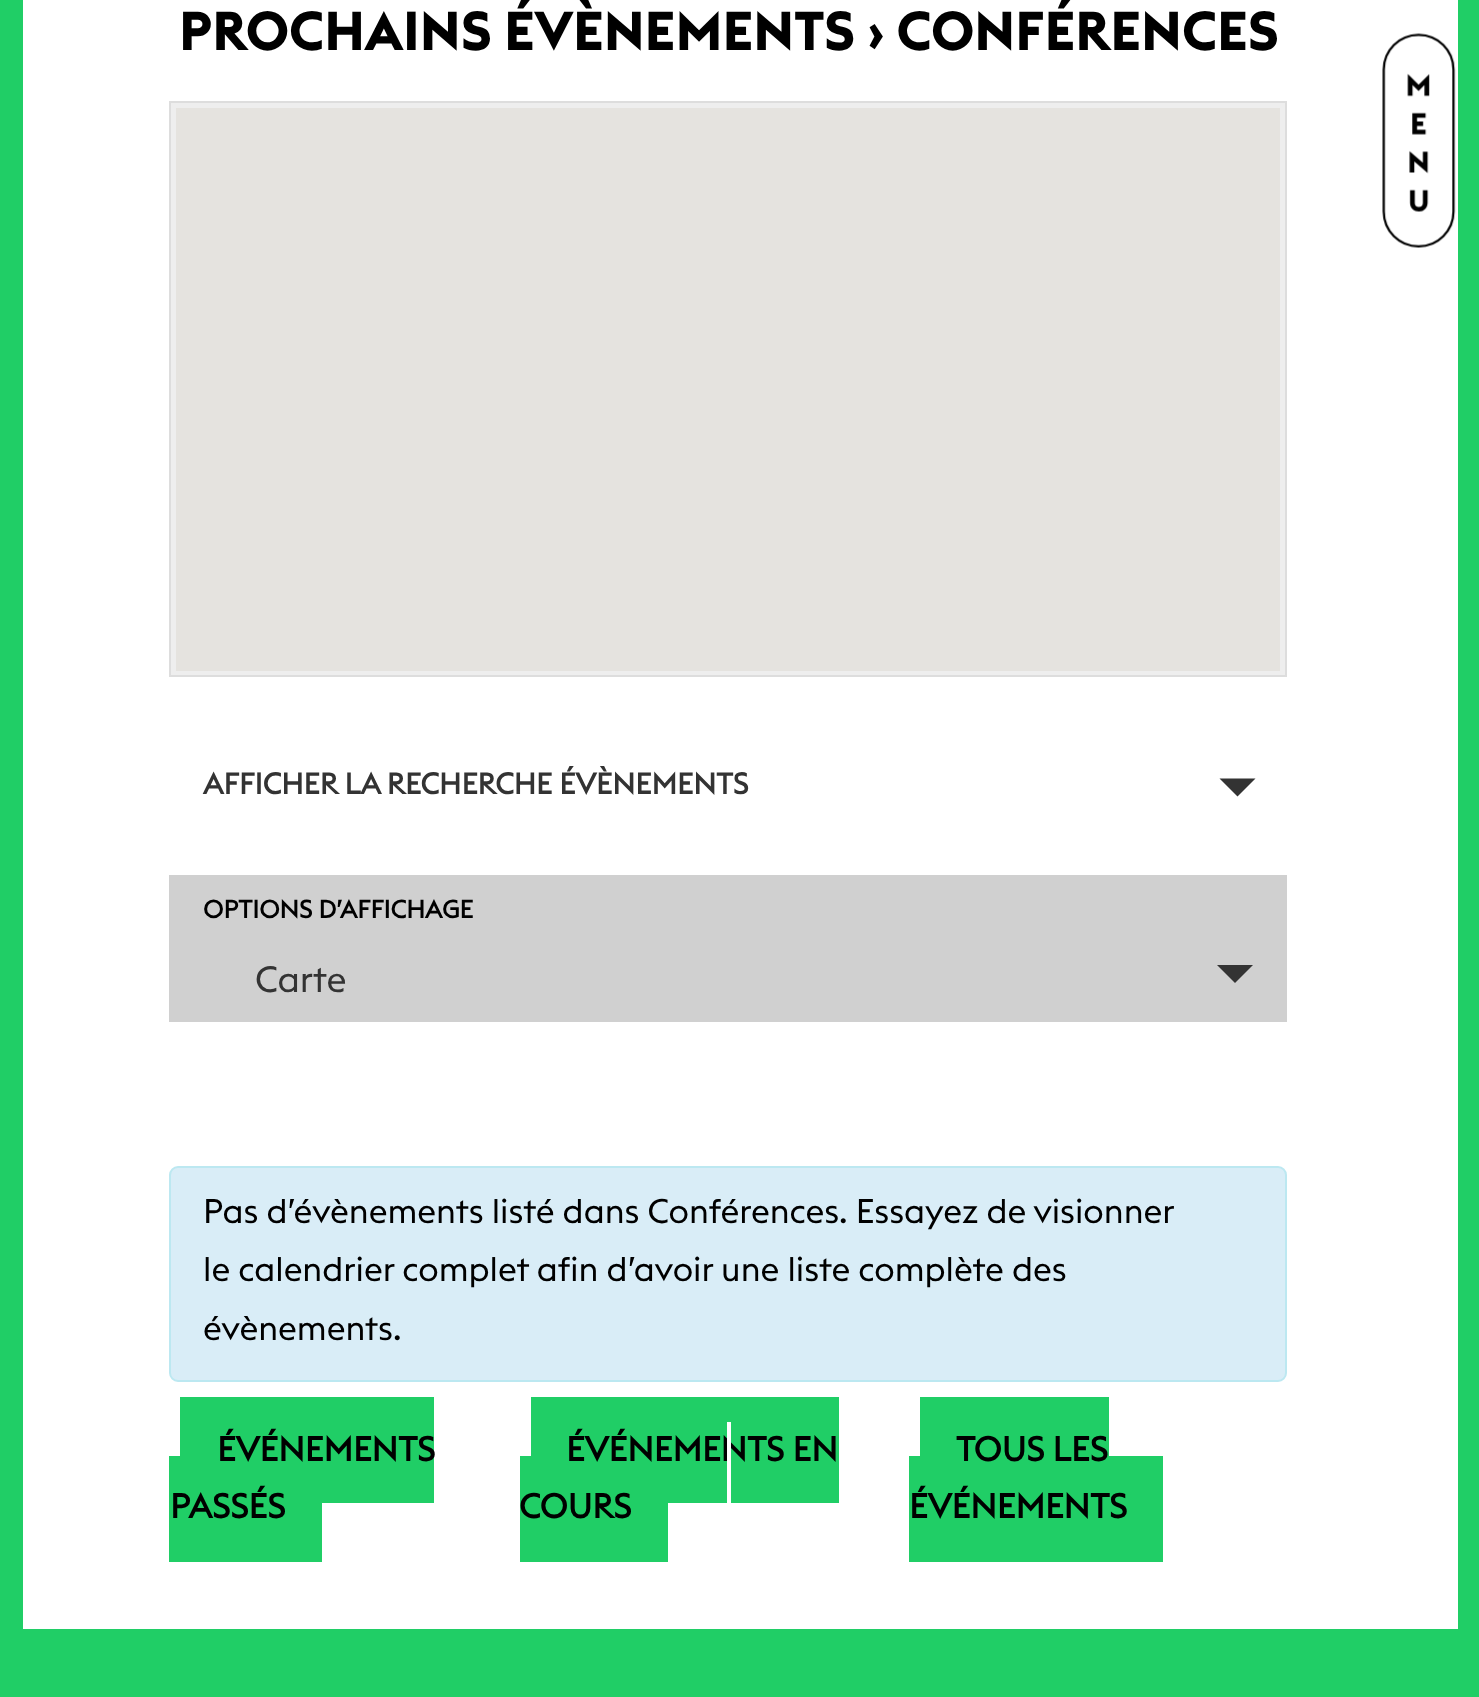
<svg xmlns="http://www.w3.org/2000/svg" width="1479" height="1697">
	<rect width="100%" height="100%" fill="#20CE66" />
	<rect x="23" y="0" width="1435" height="1629" fill="#FFFFFF" />
	<text x="179" y="50" font-family="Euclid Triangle" font-size="54" font-weight="700" fill="#000000">PROCHAINS ÉVÈNEMENTS › CONFÉRENCES</text>
	<rect x="170" y="102" width="1116" height="574" fill="#EEEEEE" stroke="#DDDDDD" stroke-width="2" />
	<rect x="176" y="108" width="1104" height="563" fill="#E5E3DF" />
	<text x="203" y="794" font-family="'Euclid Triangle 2'" font-size="29.25" font-weight="700" fill="#333333">AFFICHER LA RECHERCHE ÉVÈNEMENTS</text>
	<path d="M1219.5 778.5H1255.5L1237.5 796.5Z" fill="#333333" />
	<rect x="169" y="875" width="1118" height="147" fill="#D0D0D0" />
	<text x="203" y="918" font-family="'Euclid Triangle 2'" font-size="24.75" font-weight="700" fill="#000000">OPTIONS D’AFFICHAGE</text>
	<text x="255" y="992" font-family="Euclid Triangle" font-size="36" fill="#333333">Carte</text>
	<path d="M1217 965H1253L1235 983Z" fill="#333333" />
	<rect x="170" y="1167" width="1116" height="214" rx="8" fill="#D9EDF7" stroke="#BCE8F1" stroke-width="2" />
	<g font-family="Euclid Triangle" font-size="33.75" fill="#000000">
		<text x="203" y="1223">Pas d’évènements listé dans Conférences. Essayez de visionner</text>
		<text x="203" y="1281">le calendrier complet afin d’avoir une liste complète des</text>
		<text x="203" y="1340">évènements.</text>
	</g>
	<rect x="531" y="1397" width="308" height="106" fill="#20CE66" />
	<rect x="520" y="1456" width="148" height="106" fill="#20CE66" />
	<text x="566" y="1461" font-family="'Euclid Triangle 2'" font-size="33.75" font-weight="700" fill="#000000">ÉVÉNEMENTS EN</text>
	<rect x="727" y="1422" width="4" height="81" fill="#FFFFFF" />
	<rect x="180" y="1397" width="254" height="106" fill="#20CE66" />
	<rect x="169" y="1456" width="153" height="106" fill="#20CE66" />
	<g font-family="'Euclid Triangle 2'" font-size="33.75" font-weight="700" fill="#000000">
		<text x="217" y="1461">ÉVÉNEMENTS</text>
		<text x="170" y="1518">PASSÉS</text>
		<text x="519" y="1518">COURS</text>
	</g>
	<rect x="920" y="1397" width="189" height="59" fill="#20CE66" />
	<rect x="909" y="1456" width="254" height="106" fill="#20CE66" />
	<g font-family="'Euclid Triangle 2'" font-size="33.75" font-weight="700" fill="#000000">
		<text x="956" y="1461">TOUS LES</text>
		<text x="909" y="1518">ÉVÉNEMENTS</text>
	</g>
	<image x="1382" y="33" width="74" height="215" href="assets/img1.png" />
</svg>
